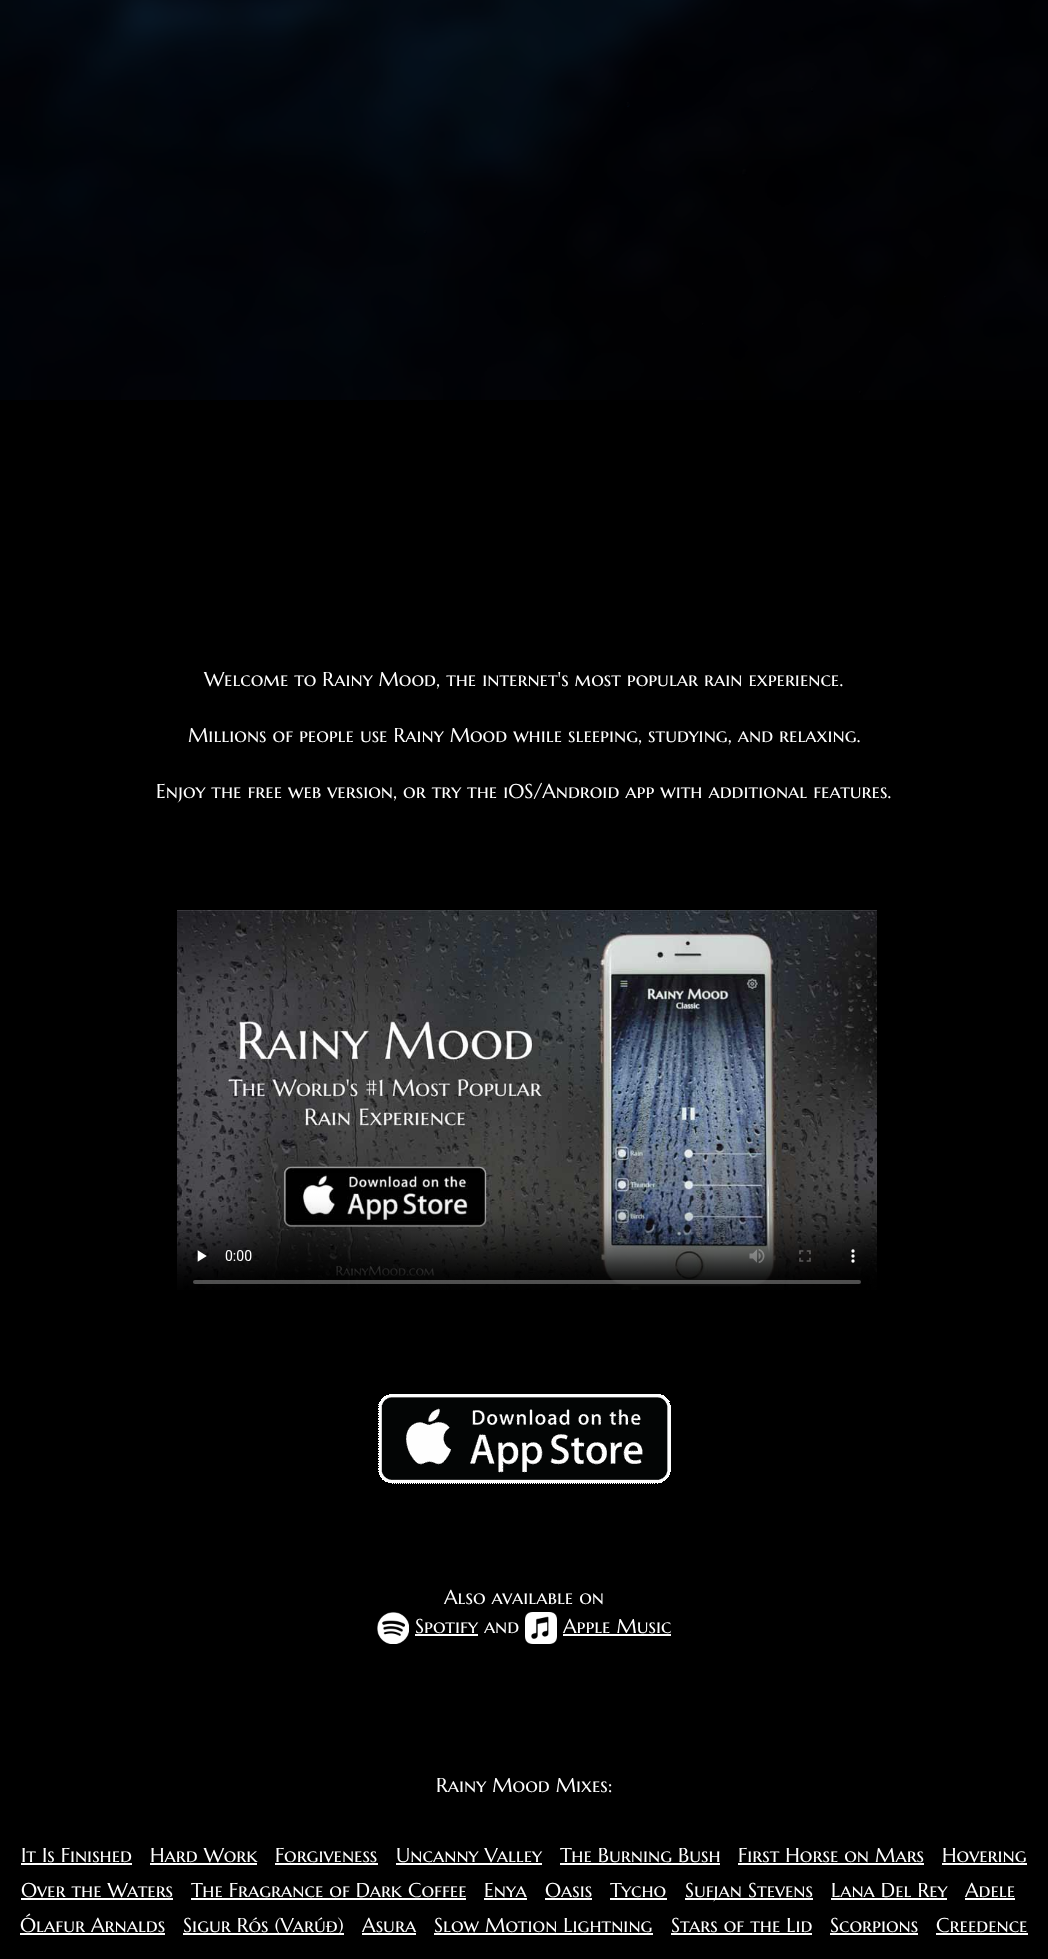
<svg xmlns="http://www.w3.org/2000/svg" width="1048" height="1959">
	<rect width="100%" height="100%" fill="#000000" />
	<image x="0" y="0" width="1048" height="400" href="assets/img1.png" />
	<g font-family="Marcellus SC" font-size="20" fill="#FFFFFF">
		<text x="204" y="686">Welcome to Rainy Mood, the internet's most popular rain experience.</text>
		<text x="188" y="742">Millions of people use Rainy Mood while sleeping, studying, and relaxing.</text>
		<text x="156" y="798">Enjoy the free web version, or try the iOS/Android app with additional features.</text>
	</g>
	<image x="177" y="910" width="700" height="380" href="assets/img2.png" />
	<image x="378" y="1394" width="293" height="90" href="assets/img3.png" />
	<text x="444" y="1604" font-family="Marcellus SC" font-size="20" fill="#FFFFFF">Also available on</text>
	<image x="377" y="1612" width="32" height="32" href="assets/img4.png" />
	<text x="415" y="1633" font-family="Marcellus SC" font-size="20" fill="#FFFFFF">Spotify and</text>
	<rect x="415" y="1634" width="63" height="2" fill="#FFFFFF" />
	<image x="525" y="1612" width="32" height="32" href="assets/img5.png" />
	<text x="563" y="1633" font-family="Marcellus SC" font-size="20" fill="#FFFFFF">Apple Music</text>
	<rect x="563" y="1634" width="108" height="2" fill="#FFFFFF" />
	<g font-family="Marcellus SC" font-size="20" fill="#FFFFFF">
		<text x="436" y="1792">Rainy Mood Mixes:</text>
		<text x="21" y="1862">It Is Finished</text>
	</g>
	<rect x="21" y="1863" width="111" height="2" fill="#FFFFFF" />
	<text x="150" y="1862" font-family="Marcellus SC" font-size="20" fill="#FFFFFF">Hard Work</text>
	<rect x="150" y="1863" width="107" height="2" fill="#FFFFFF" />
	<text x="275" y="1862" font-family="Marcellus SC" font-size="20" fill="#FFFFFF">Forgiveness</text>
	<rect x="275" y="1863" width="103" height="2" fill="#FFFFFF" />
	<text x="396" y="1862" font-family="Marcellus SC" font-size="20" fill="#FFFFFF">Uncanny Valley</text>
	<rect x="396" y="1863" width="146" height="2" fill="#FFFFFF" />
	<text x="560" y="1862" font-family="Marcellus SC" font-size="20" fill="#FFFFFF">The Burning Bush</text>
	<rect x="560" y="1863" width="160" height="2" fill="#FFFFFF" />
	<text x="738" y="1862" font-family="Marcellus SC" font-size="20" fill="#FFFFFF">First Horse on Mars</text>
	<rect x="738" y="1863" width="186" height="2" fill="#FFFFFF" />
	<text x="942" y="1862" font-family="Marcellus SC" font-size="20" fill="#FFFFFF">Hovering</text>
	<rect x="942" y="1863" width="85" height="2" fill="#FFFFFF" />
	<text x="21" y="1897" font-family="Marcellus SC" font-size="20" fill="#FFFFFF">Over the Waters</text>
	<rect x="21" y="1898" width="152" height="2" fill="#FFFFFF" />
	<text x="191" y="1897" font-family="Marcellus SC" font-size="20" fill="#FFFFFF">The Fragrance of Dark Coffee</text>
	<rect x="191" y="1898" width="275" height="2" fill="#FFFFFF" />
	<text x="484" y="1897" font-family="Marcellus SC" font-size="20" fill="#FFFFFF">Enya</text>
	<rect x="484" y="1898" width="43" height="2" fill="#FFFFFF" />
	<text x="545" y="1897" font-family="Marcellus SC" font-size="20" fill="#FFFFFF">Oasis</text>
	<rect x="545" y="1898" width="47" height="2" fill="#FFFFFF" />
	<text x="610" y="1897" font-family="Marcellus SC" font-size="20" fill="#FFFFFF">Tycho</text>
	<rect x="610" y="1898" width="57" height="2" fill="#FFFFFF" />
	<rect x="685" y="1898" width="128" height="2" fill="#FFFFFF" />
	<g font-family="Marcellus SC" font-size="20" fill="#FFFFFF">
		<text x="685" y="1897">Sufjan Stevens</text>
		<text x="831" y="1897">Lana Del Rey</text>
	</g>
	<rect x="831" y="1898" width="116" height="2" fill="#FFFFFF" />
	<text x="965" y="1897" font-family="Marcellus SC" font-size="20" fill="#FFFFFF">Adele</text>
	<rect x="965" y="1898" width="50" height="2" fill="#FFFFFF" />
	<text x="20" y="1932" font-family="Marcellus SC" font-size="20" fill="#FFFFFF">Ólafur Arnalds</text>
	<rect x="20" y="1933" width="145" height="2" fill="#FFFFFF" />
	<rect x="183" y="1933" width="161" height="2" fill="#FFFFFF" />
	<g font-family="Marcellus SC" font-size="20" fill="#FFFFFF">
		<text x="183" y="1932">Sigur Rós (Varúð)</text>
		<text x="362" y="1932">Asura</text>
	</g>
	<rect x="362" y="1933" width="54" height="2" fill="#FFFFFF" />
	<text x="434" y="1932" font-family="Marcellus SC" font-size="20" fill="#FFFFFF">Slow Motion Lightning</text>
	<rect x="434" y="1933" width="219" height="2" fill="#FFFFFF" />
	<text x="671" y="1932" font-family="Marcellus SC" font-size="20" fill="#FFFFFF">Stars of the Lid</text>
	<rect x="671" y="1933" width="141" height="2" fill="#FFFFFF" />
	<text x="830" y="1932" font-family="Marcellus SC" font-size="20" fill="#FFFFFF">Scorpions</text>
	<rect x="830" y="1933" width="88" height="2" fill="#FFFFFF" />
	<text x="936" y="1932" font-family="Marcellus SC" font-size="20" fill="#FFFFFF">Creedence</text>
	<rect x="936" y="1933" width="92" height="2" fill="#FFFFFF" />
</svg>
